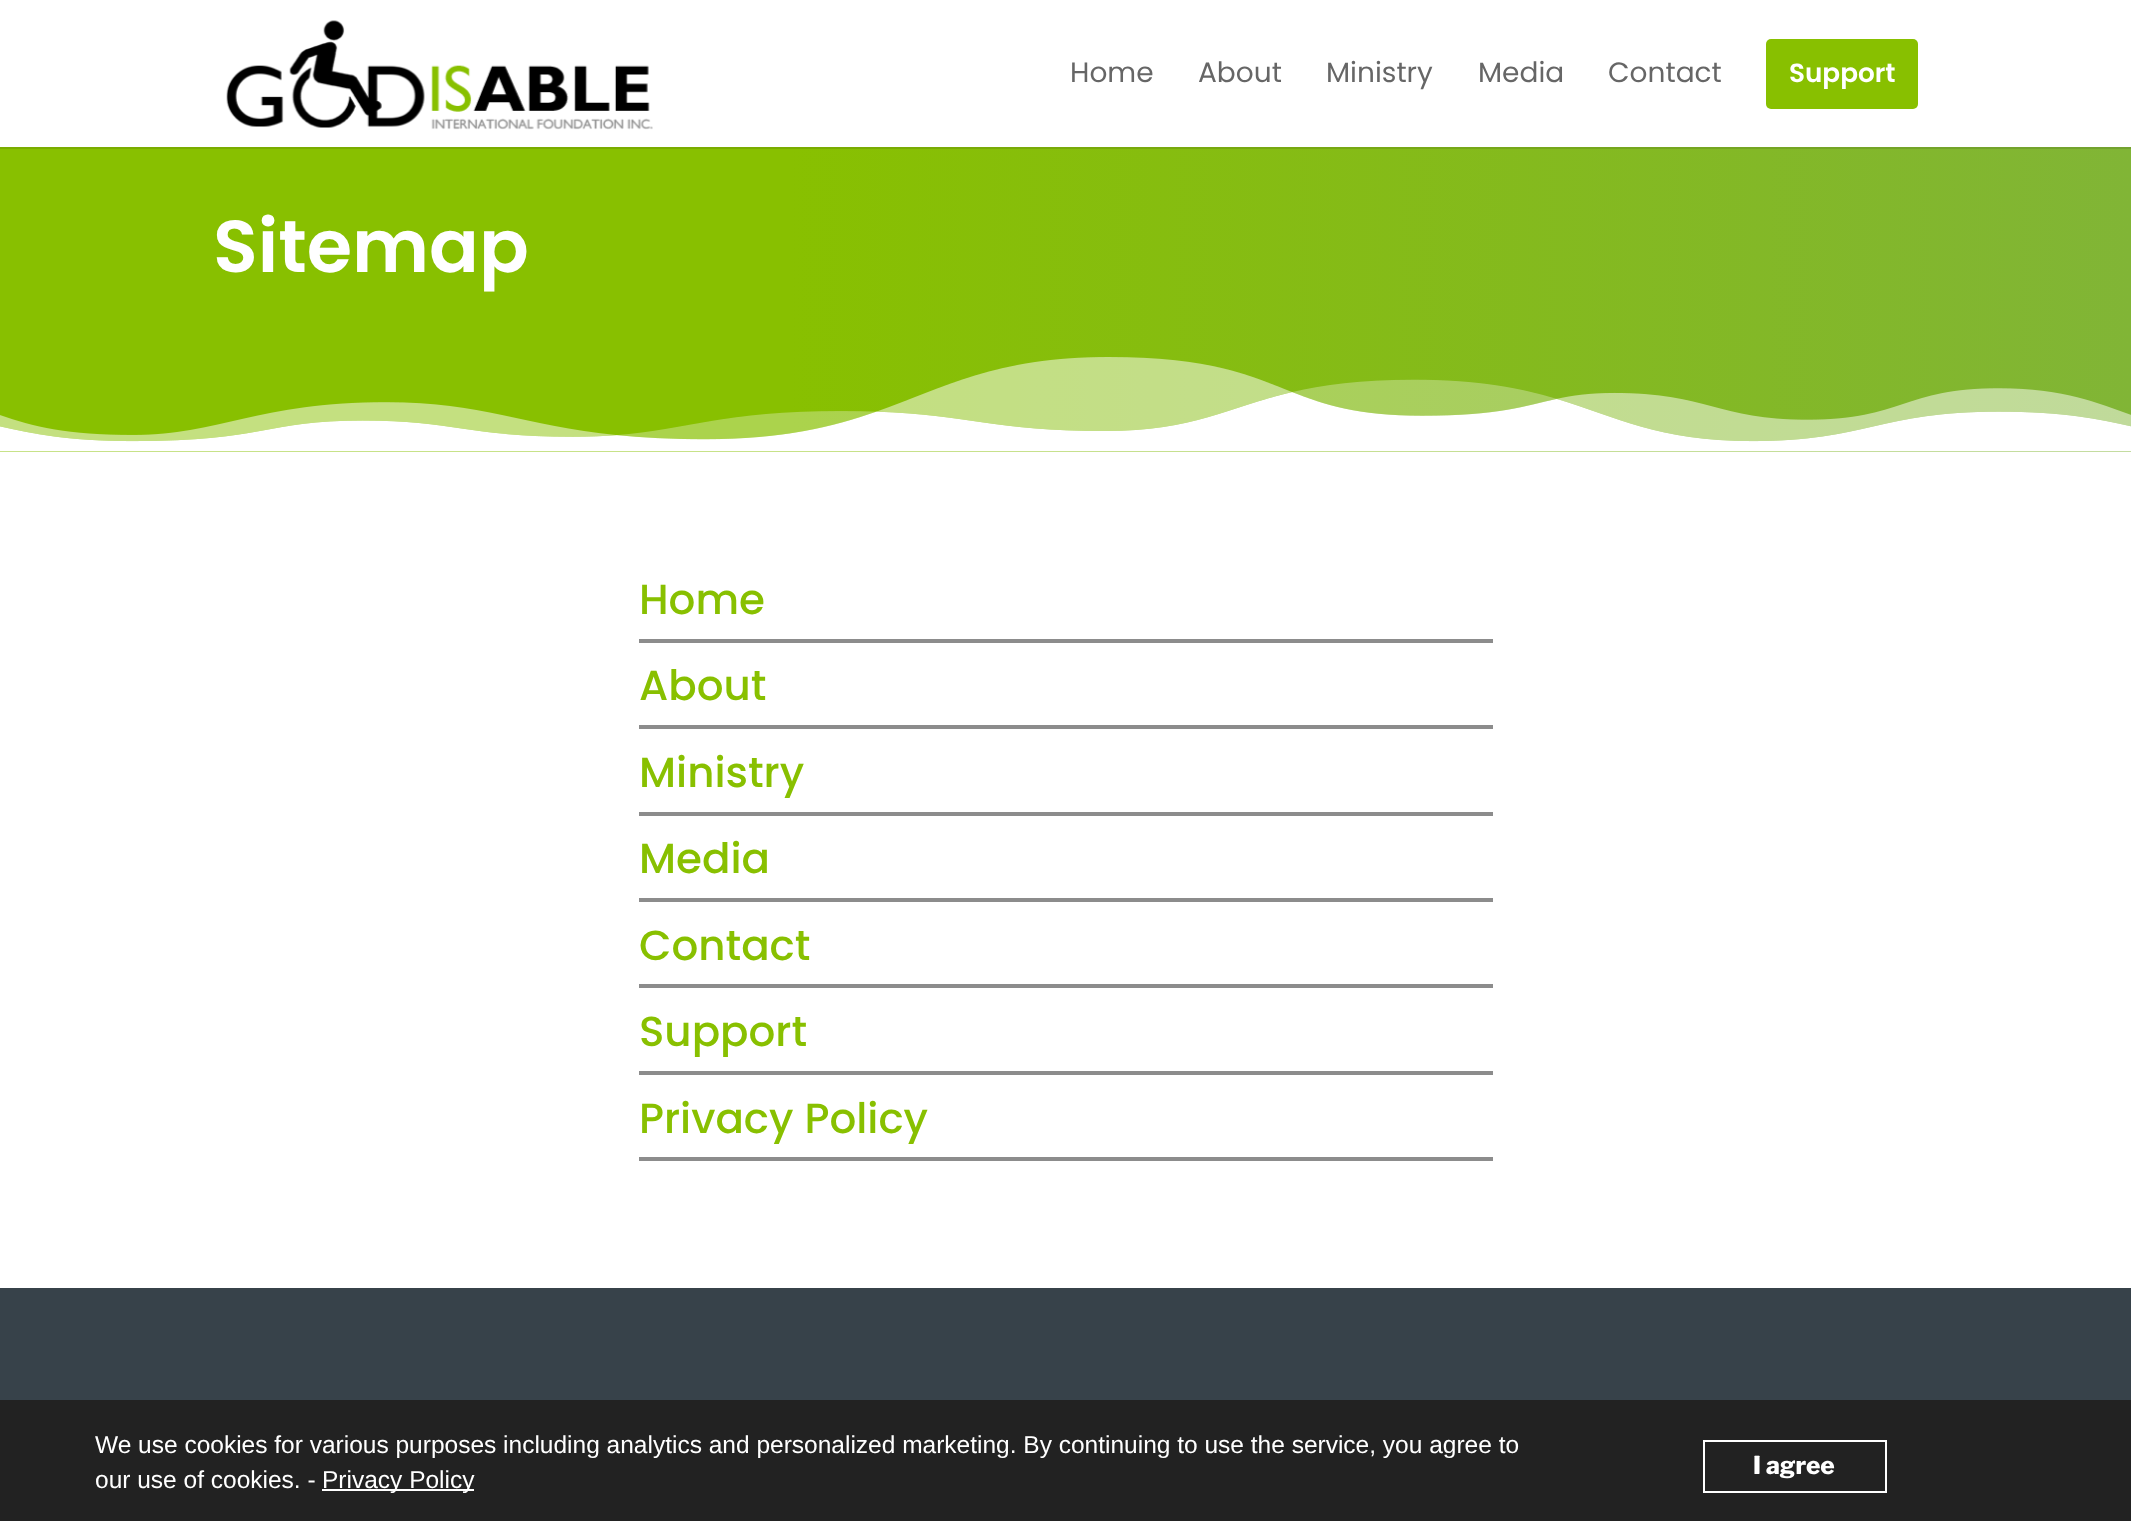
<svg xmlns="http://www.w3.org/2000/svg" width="2131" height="1521">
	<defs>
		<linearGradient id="g1" gradientUnits="userSpaceOnUse" x1="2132" y1="299" x2="0" y2="299"><stop offset="0" stop-color="#81B536" /><stop offset="0.63" stop-color="#88C000" /></linearGradient>
	</defs>
	<rect width="100%" height="100%" fill="#FFFFFF" />
	<rect x="0" y="147" width="2131" height="305" fill="url(#g1)" />
	<path d="M0 147V149H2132V2V147Z" fill="#000000" fill-opacity="0.1" />
	<image x="226" y="20" width="427" height="110" href="assets/img1.png" />
	<g font-family="Poppins" font-size="28" fill="#666666">
		<text x="1070" y="82">Home</text>
		<text x="1198" y="82">About</text>
		<text x="1326" y="82">Ministry</text>
		<text x="1478" y="82">Media</text>
		<text x="1608" y="82">Contact</text>
	</g>
	<rect x="1766" y="39" width="152" height="70" rx="5" fill="#88C000" />
	<text x="1789" y="82" font-family="Poppins" font-size="26.25" font-weight="600" fill="#FFFFFF">Support</text>
	<text x="213" y="272" font-family="Poppins" font-size="73.5" font-weight="600" fill="#FFFFFF">Sitemap</text>
	<image x="0" y="357" width="2131" height="95" href="assets/img2.png" />
	<rect x="639" y="639" width="854" height="4" fill="#8C8C8C" />
	<text x="639" y="614" font-family="Poppins" font-size="42" font-weight="500" fill="#88C000">Home</text>
	<rect x="639" y="725" width="854" height="4" fill="#8C8C8C" />
	<text x="639" y="700" font-family="Poppins" font-size="42" font-weight="500" fill="#88C000">About</text>
	<rect x="639" y="812" width="854" height="4" fill="#8C8C8C" />
	<text x="639" y="787" font-family="Poppins" font-size="42" font-weight="500" fill="#88C000">Ministry</text>
	<rect x="639" y="898" width="854" height="4" fill="#8C8C8C" />
	<text x="639" y="873" font-family="Poppins" font-size="42" font-weight="500" fill="#88C000">Media</text>
	<rect x="639" y="984" width="854" height="4" fill="#8C8C8C" />
	<text x="639" y="960" font-family="Poppins" font-size="42" font-weight="500" fill="#88C000">Contact</text>
	<rect x="639" y="1071" width="854" height="4" fill="#8C8C8C" />
	<text x="639" y="1046" font-family="Poppins" font-size="42" font-weight="500" fill="#88C000">Support</text>
	<rect x="639" y="1157" width="854" height="4" fill="#8C8C8C" />
	<text x="639" y="1133" font-family="Poppins" font-size="42" font-weight="500" fill="#88C000">Privacy Policy</text>
	<rect x="0" y="1288" width="2131" height="112" fill="#37424A" />
	<rect x="0" y="1400" width="2131" height="121" fill="#222222" />
	<g font-family="Liberation Sans" font-size="24.5" fill="#FFFFFF">
		<text x="95" y="1453">We use cookies for various purposes including analytics and personalized marketing. By continuing to use the service, you agree to</text>
		<text x="95" y="1488">our use of cookies. -</text>
	</g>
	<rect x="322" y="1489" width="152" height="2" fill="#FFFFFF" />
	<text x="322" y="1488" font-family="Liberation Sans" font-size="24.5" fill="#FFFFFF">Privacy Policy</text>
	<rect x="1704" y="1441" width="182" height="51" fill="none" stroke="#FFFFFF" stroke-width="2" />
	<text x="1753" y="1474" font-family="Libre Franklin" font-size="24.5" font-weight="800" fill="#FFFFFF">I agree</text>
</svg>
